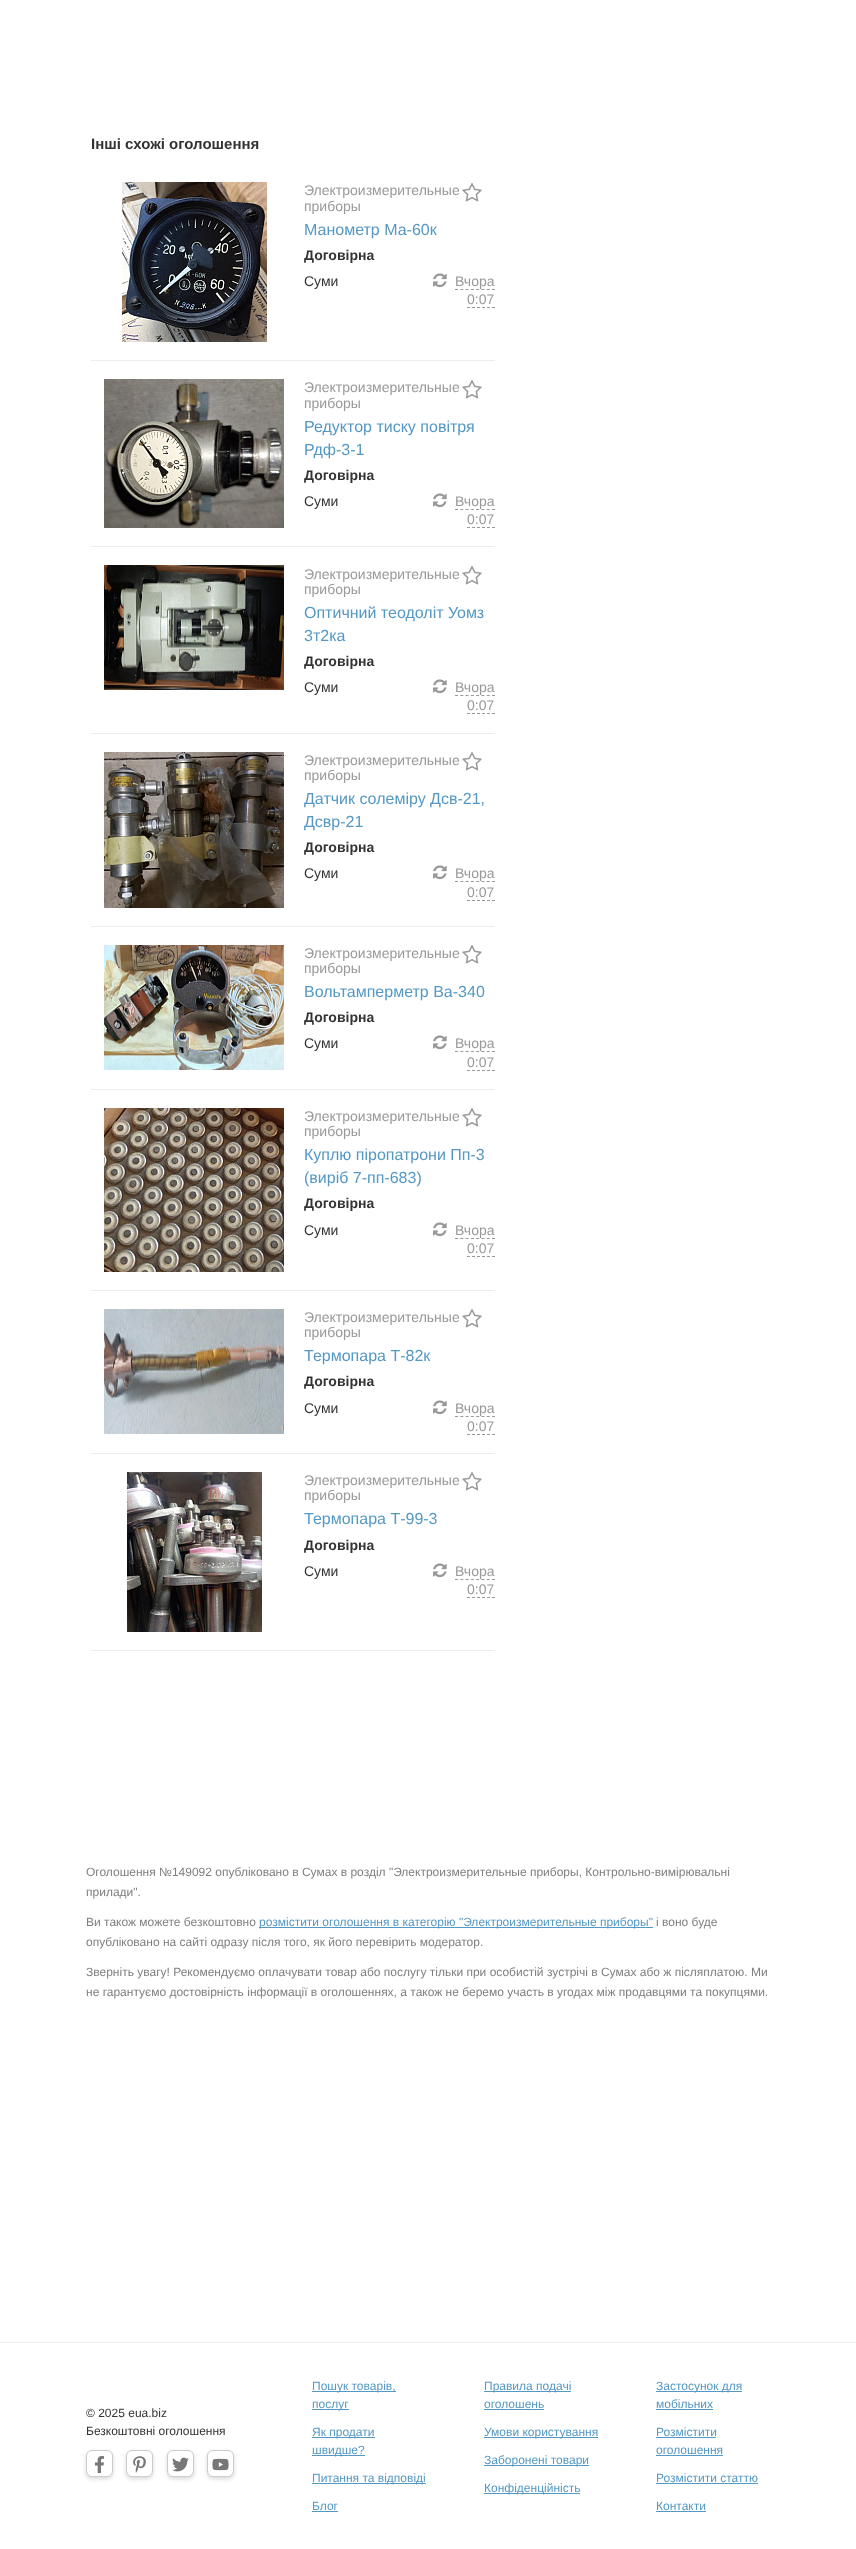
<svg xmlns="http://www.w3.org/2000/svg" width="856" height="2549">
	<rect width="100%" height="100%" fill="#FFFFFF" />
	<text x="91" y="149" font-family="Liberation Sans" font-size="15" font-weight="700" fill="#333333">Інші схожі оголошення</text>
	<image x="122" y="182" width="145" height="160" href="assets/img1.png" />
	<image x="462" y="183" width="20" height="19" href="assets/img2.png" />
	<g font-family="Liberation Sans" font-size="14" fill="#999999">
		<text x="304" y="195">Электроизмерительные</text>
		<text x="304" y="211">приборы</text>
	</g>
	<text x="304" y="235" font-family="Liberation Sans" font-size="16" fill="#5498C3">Манометр Ма-60к</text>
	<text x="304" y="260" font-family="Liberation Sans" font-size="14" font-weight="700" fill="#333333">Договірна</text>
	<text x="304" y="286" font-family="Liberation Sans" font-size="14" fill="#333333">Суми</text>
	<image x="433" y="273" width="14" height="15" href="assets/img3.png" />
	<text x="455" y="286" font-family="Liberation Sans" font-size="14" fill="#999999">Вчора</text>
	<path d="M455 289.5H495" fill="none" stroke="#999999" stroke-dasharray="3 2.29" />
	<text x="467" y="304" font-family="Liberation Sans" font-size="14" fill="#999999">0:07</text>
	<path d="M467 307.5H495" fill="none" stroke="#999999" stroke-dasharray="3 2" />
	<rect x="91" y="360" width="404" height="1" fill="#E8EDEF" />
	<image x="104" y="379" width="180" height="149" href="assets/img4.png" />
	<image x="462" y="380" width="20" height="19" href="assets/img2.png" />
	<g font-family="Liberation Sans" font-size="14" fill="#999999">
		<text x="304" y="392">Электроизмерительные</text>
		<text x="304" y="408">приборы</text>
	</g>
	<g font-family="Liberation Sans" font-size="16" fill="#5498C3">
		<text x="304" y="432">Редуктор тиску повітря</text>
		<text x="304" y="455">Рдф-3-1</text>
	</g>
	<text x="304" y="480" font-family="Liberation Sans" font-size="14" font-weight="700" fill="#333333">Договірна</text>
	<text x="304" y="506" font-family="Liberation Sans" font-size="14" fill="#333333">Суми</text>
	<image x="433" y="493" width="14" height="15" href="assets/img3.png" />
	<text x="455" y="506" font-family="Liberation Sans" font-size="14" fill="#999999">Вчора</text>
	<path d="M455 509.5H495" fill="none" stroke="#999999" stroke-dasharray="3 2.29" />
	<text x="467" y="524" font-family="Liberation Sans" font-size="14" fill="#999999">0:07</text>
	<path d="M467 527.5H495" fill="none" stroke="#999999" stroke-dasharray="3 2" />
	<rect x="91" y="546" width="404" height="1" fill="#E8EDEF" />
	<image x="104" y="565" width="180" height="125" href="assets/img5.png" />
	<image x="462" y="566" width="20" height="19" href="assets/img2.png" />
	<g font-family="Liberation Sans" font-size="14" fill="#999999">
		<text x="304" y="579">Электроизмерительные</text>
		<text x="304" y="594">приборы</text>
	</g>
	<g font-family="Liberation Sans" font-size="16" fill="#5498C3">
		<text x="304" y="618">Оптичний теодоліт Уомз</text>
		<text x="304" y="641">3т2ка</text>
	</g>
	<text x="304" y="666" font-family="Liberation Sans" font-size="14" font-weight="700" fill="#333333">Договірна</text>
	<text x="304" y="692" font-family="Liberation Sans" font-size="14" fill="#333333">Суми</text>
	<image x="433" y="679" width="14" height="15" href="assets/img3.png" />
	<text x="455" y="692" font-family="Liberation Sans" font-size="14" fill="#999999">Вчора</text>
	<path d="M455 695.5H495" fill="none" stroke="#999999" stroke-dasharray="3 2.29" />
	<text x="467" y="710" font-family="Liberation Sans" font-size="14" fill="#999999">0:07</text>
	<path d="M467 713.5H495" fill="none" stroke="#999999" stroke-dasharray="3 2" />
	<rect x="91" y="733" width="404" height="1" fill="#E8EDEF" />
	<image x="104" y="752" width="180" height="156" href="assets/img6.png" />
	<image x="462" y="752" width="20" height="19" href="assets/img2.png" />
	<g font-family="Liberation Sans" font-size="14" fill="#999999">
		<text x="304" y="765">Электроизмерительные</text>
		<text x="304" y="780">приборы</text>
	</g>
	<g font-family="Liberation Sans" font-size="16" fill="#5498C3">
		<text x="304" y="804">Датчик солеміру Дсв-21,</text>
		<text x="304" y="827">Дсвр-21</text>
	</g>
	<text x="304" y="852" font-family="Liberation Sans" font-size="14" font-weight="700" fill="#333333">Договірна</text>
	<text x="304" y="878" font-family="Liberation Sans" font-size="14" fill="#333333">Суми</text>
	<image x="433" y="865" width="14" height="15" href="assets/img3.png" />
	<text x="455" y="878" font-family="Liberation Sans" font-size="14" fill="#999999">Вчора</text>
	<path d="M455 881.5H495" fill="none" stroke="#999999" stroke-dasharray="3 2.29" />
	<text x="467" y="897" font-family="Liberation Sans" font-size="14" fill="#999999">0:07</text>
	<path d="M467 900.5H495" fill="none" stroke="#999999" stroke-dasharray="3 2" />
	<rect x="91" y="926" width="404" height="1" fill="#E8EDEF" />
	<image x="104" y="945" width="180" height="125" href="assets/img7.png" />
	<image x="462" y="945" width="20" height="19" href="assets/img2.png" />
	<g font-family="Liberation Sans" font-size="14" fill="#999999">
		<text x="304" y="958">Электроизмерительные</text>
		<text x="304" y="973">приборы</text>
	</g>
	<text x="304" y="997" font-family="Liberation Sans" font-size="16" fill="#5498C3">Вольтамперметр Ва-340</text>
	<text x="304" y="1022" font-family="Liberation Sans" font-size="14" font-weight="700" fill="#333333">Договірна</text>
	<text x="304" y="1048" font-family="Liberation Sans" font-size="14" fill="#333333">Суми</text>
	<image x="433" y="1035" width="14" height="15" href="assets/img3.png" />
	<text x="455" y="1048" font-family="Liberation Sans" font-size="14" fill="#999999">Вчора</text>
	<path d="M455 1051.5H495" fill="none" stroke="#999999" stroke-dasharray="3 2.29" />
	<text x="467" y="1067" font-family="Liberation Sans" font-size="14" fill="#999999">0:07</text>
	<path d="M467 1070.5H495" fill="none" stroke="#999999" stroke-dasharray="3 2" />
	<rect x="91" y="1089" width="404" height="1" fill="#E8EDEF" />
	<image x="104" y="1108" width="180" height="164" href="assets/img8.png" />
	<image x="462" y="1108" width="20" height="19" href="assets/img2.png" />
	<g font-family="Liberation Sans" font-size="14" fill="#999999">
		<text x="304" y="1121">Электроизмерительные</text>
		<text x="304" y="1136">приборы</text>
	</g>
	<g font-family="Liberation Sans" font-size="16" fill="#5498C3">
		<text x="304" y="1160">Куплю піропатрони Пп-3</text>
		<text x="304" y="1183">(виріб 7-пп-683)</text>
	</g>
	<text x="304" y="1208" font-family="Liberation Sans" font-size="14" font-weight="700" fill="#333333">Договірна</text>
	<text x="304" y="1235" font-family="Liberation Sans" font-size="14" fill="#333333">Суми</text>
	<image x="433" y="1222" width="14" height="15" href="assets/img3.png" />
	<text x="455" y="1235" font-family="Liberation Sans" font-size="14" fill="#999999">Вчора</text>
	<path d="M455 1238.5H495" fill="none" stroke="#999999" stroke-dasharray="3 2.29" />
	<text x="467" y="1253" font-family="Liberation Sans" font-size="14" fill="#999999">0:07</text>
	<path d="M467 1256.5H495" fill="none" stroke="#999999" stroke-dasharray="3 2" />
	<rect x="91" y="1290" width="404" height="1" fill="#E8EDEF" />
	<image x="104" y="1309" width="180" height="125" href="assets/img9.png" />
	<image x="462" y="1309" width="20" height="19" href="assets/img2.png" />
	<g font-family="Liberation Sans" font-size="14" fill="#999999">
		<text x="304" y="1322">Электроизмерительные</text>
		<text x="304" y="1337">приборы</text>
	</g>
	<text x="304" y="1361" font-family="Liberation Sans" font-size="16" fill="#5498C3">Термопара Т-82к</text>
	<text x="304" y="1386" font-family="Liberation Sans" font-size="14" font-weight="700" fill="#333333">Договірна</text>
	<text x="304" y="1413" font-family="Liberation Sans" font-size="14" fill="#333333">Суми</text>
	<image x="433" y="1400" width="14" height="15" href="assets/img3.png" />
	<text x="455" y="1413" font-family="Liberation Sans" font-size="14" fill="#999999">Вчора</text>
	<path d="M455 1416.5H495" fill="none" stroke="#999999" stroke-dasharray="3 2.29" />
	<text x="467" y="1431" font-family="Liberation Sans" font-size="14" fill="#999999">0:07</text>
	<path d="M467 1434.5H495" fill="none" stroke="#999999" stroke-dasharray="3 2" />
	<rect x="91" y="1453" width="404" height="1" fill="#E8EDEF" />
	<image x="127" y="1472" width="135" height="160" href="assets/img10.png" />
	<image x="462" y="1472" width="20" height="19" href="assets/img2.png" />
	<g font-family="Liberation Sans" font-size="14" fill="#999999">
		<text x="304" y="1485">Электроизмерительные</text>
		<text x="304" y="1500">приборы</text>
	</g>
	<text x="304" y="1524" font-family="Liberation Sans" font-size="16" fill="#5498C3">Термопара Т-99-3</text>
	<text x="304" y="1550" font-family="Liberation Sans" font-size="14" font-weight="700" fill="#333333">Договірна</text>
	<text x="304" y="1576" font-family="Liberation Sans" font-size="14" fill="#333333">Суми</text>
	<image x="433" y="1563" width="14" height="15" href="assets/img3.png" />
	<text x="455" y="1576" font-family="Liberation Sans" font-size="14" fill="#999999">Вчора</text>
	<path d="M455 1579.5H495" fill="none" stroke="#999999" stroke-dasharray="3 2.29" />
	<text x="467" y="1594" font-family="Liberation Sans" font-size="14" fill="#999999">0:07</text>
	<path d="M467 1597.5H495" fill="none" stroke="#999999" stroke-dasharray="3 2" />
	<rect x="91" y="1650" width="404" height="1" fill="#E8EDEF" />
	<g font-family="Liberation Sans" font-size="12" fill="#7F7F7F">
		<text x="86" y="1876">Оголошення №149092 опубліковано в Сумах в розділ "Электроизмерительные приборы, Контрольно-вимірювальні</text>
		<text x="86" y="1896">прилади".</text>
		<text x="86" y="1926">Ви також можете безкоштовно</text>
	</g>
	<rect x="259" y="1927" width="394" height="1" fill="#5498C3" />
	<text x="259" y="1926" font-family="Liberation Sans" font-size="12" fill="#5498C3">розмістити оголошення в категорію "Электроизмерительные приборы"</text>
	<g font-family="Liberation Sans" font-size="12" fill="#7F7F7F">
		<text x="656" y="1926">і воно буде</text>
		<text x="86" y="1946">опубліковано на сайті одразу після того, як його перевірить модератор.</text>
		<text x="86" y="1976">Зверніть увагу! Рекомендуємо оплачувати товар або послугу тільки при особистій зустрічі в Сумах або ж післяплатою. Ми</text>
		<text x="86" y="1996">не гарантуємо достовірність інформації в оголошеннях, а також не беремо участь в угодах між продавцями та покупцями.</text>
	</g>
	<rect x="0" y="2342" width="856" height="1" fill="#E8EDEF" />
	<g font-family="Liberation Sans" font-size="12" fill="#333333">
		<text x="86" y="2417">© 2025 eua.biz</text>
		<text x="86" y="2435">Безкоштовні оголошення</text>
	</g>
	<rect x="86" y="2452" width="27" height="27" rx="6" fill="#000000" fill-opacity="0.15" filter="blur(2px)" />
	<rect x="86.5" y="2450.5" width="26" height="26" rx="5.5" fill="#FFFFFF" stroke="#CCCCCC" />
	<image x="94" y="2456" width="11" height="17" href="assets/img11.png" />
	<rect x="126" y="2452" width="27" height="27" rx="6" fill="#000000" fill-opacity="0.15" filter="blur(2px)" />
	<rect x="126.5" y="2450.5" width="26" height="26" rx="5.5" fill="#FFFFFF" stroke="#CCCCCC" />
	<image x="133" y="2456" width="13" height="17" href="assets/img12.png" />
	<rect x="167" y="2452" width="27" height="27" rx="6" fill="#000000" fill-opacity="0.15" filter="blur(2px)" />
	<rect x="167.5" y="2450.5" width="26" height="26" rx="5.5" fill="#FFFFFF" stroke="#CCCCCC" />
	<image x="172" y="2457" width="17" height="15" href="assets/img13.png" />
	<rect x="207" y="2452" width="27" height="27" rx="6" fill="#000000" fill-opacity="0.15" filter="blur(2px)" />
	<rect x="207.5" y="2450.5" width="26" height="26" rx="5.5" fill="#FFFFFF" stroke="#CCCCCC" />
	<image x="212" y="2458" width="17" height="13" href="assets/img14.png" />
	<rect x="312" y="2391" width="84" height="1" fill="#5498C3" />
	<text x="312" y="2390" font-family="Liberation Sans" font-size="12" fill="#5498C3">Пошук товарів,</text>
	<rect x="312" y="2409" width="37" height="1" fill="#5498C3" />
	<text x="312" y="2408" font-family="Liberation Sans" font-size="12" fill="#5498C3">послуг</text>
	<rect x="312" y="2437" width="63" height="1" fill="#5498C3" />
	<text x="312" y="2436" font-family="Liberation Sans" font-size="12" fill="#5498C3">Як продати</text>
	<rect x="312" y="2455" width="53" height="1" fill="#5498C3" />
	<text x="312" y="2454" font-family="Liberation Sans" font-size="12" fill="#5498C3">швидше?</text>
	<rect x="312" y="2483" width="114" height="1" fill="#5498C3" />
	<g font-family="Liberation Sans" font-size="12" fill="#5498C3">
		<text x="312" y="2482">Питання та відповіді</text>
		<text x="312" y="2510">Блог</text>
	</g>
	<rect x="312" y="2511" width="26" height="1" fill="#5498C3" />
	<rect x="484" y="2391" width="87" height="1" fill="#5498C3" />
	<g font-family="Liberation Sans" font-size="12" fill="#5498C3">
		<text x="484" y="2390">Правила подачі</text>
		<text x="484" y="2408">оголошень</text>
	</g>
	<rect x="484" y="2409" width="60" height="1" fill="#5498C3" />
	<rect x="484" y="2437" width="114" height="1" fill="#5498C3" />
	<text x="484" y="2436" font-family="Liberation Sans" font-size="12" fill="#5498C3">Умови користування</text>
	<rect x="484" y="2465" width="105" height="1" fill="#5498C3" />
	<text x="484" y="2464" font-family="Liberation Sans" font-size="12" fill="#5498C3">Заборонені товари</text>
	<rect x="484" y="2493" width="96" height="1" fill="#5498C3" />
	<text x="484" y="2492" font-family="Liberation Sans" font-size="12" fill="#5498C3">Конфіденційність</text>
	<rect x="656" y="2391" width="86" height="1" fill="#5498C3" />
	<g font-family="Liberation Sans" font-size="12" fill="#5498C3">
		<text x="656" y="2390">Застосунок для</text>
		<text x="656" y="2408">мобільних</text>
	</g>
	<rect x="656" y="2409" width="57" height="1" fill="#5498C3" />
	<text x="656" y="2436" font-family="Liberation Sans" font-size="12" fill="#5498C3">Розмістити</text>
	<rect x="656" y="2437" width="60" height="1" fill="#5498C3" />
	<text x="656" y="2454" font-family="Liberation Sans" font-size="12" fill="#5498C3">оголошення</text>
	<rect x="656" y="2455" width="67" height="1" fill="#5498C3" />
	<text x="656" y="2482" font-family="Liberation Sans" font-size="12" fill="#5498C3">Розмістити статтю</text>
	<rect x="656" y="2483" width="102" height="1" fill="#5498C3" />
	<text x="656" y="2510" font-family="Liberation Sans" font-size="12" fill="#5498C3">Контакти</text>
	<rect x="656" y="2511" width="50" height="1" fill="#5498C3" />
</svg>
